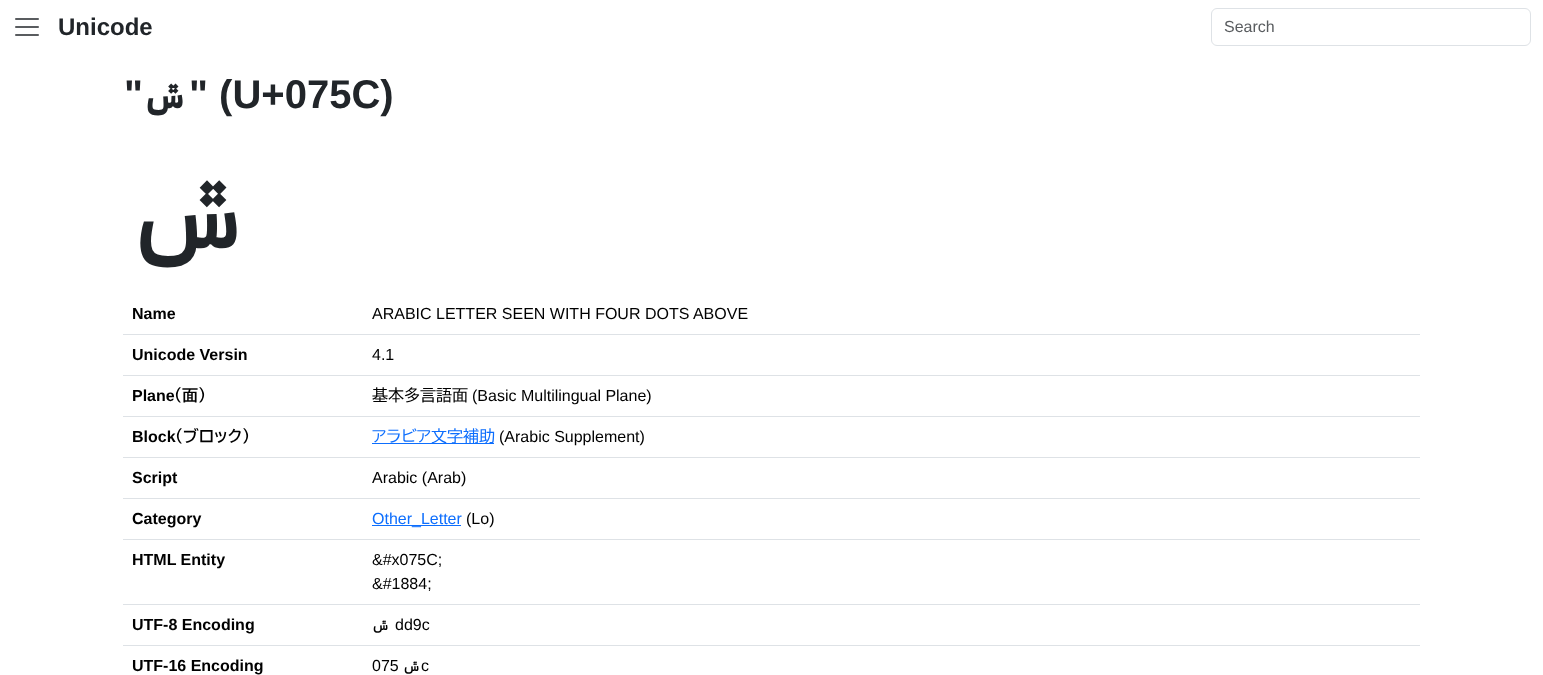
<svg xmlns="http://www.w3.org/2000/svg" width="1543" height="675">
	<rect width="100%" height="100%" fill="#FFFFFF" />
	<image x="15" y="18" width="24" height="18" href="assets/img1.png" />
	<text x="58" y="35" font-family="Liberation Sans" font-size="24" font-weight="700" fill="#212529">Unicode</text>
	<rect x="1211.5" y="8.5" width="319" height="37" rx="5.5" fill="none" stroke="#DEE2E6" />
	<text x="1224" y="32" font-family="Liberation Sans" font-size="16" fill="#595C5F">Search</text>
	<text x="124" y="108" font-family="Liberation Sans" font-size="40" font-weight="700" fill="#212529">"</text>
	<text x="189" y="108" font-family="Cascadia Code" font-size="40" font-weight="700" direction="rtl" fill="#212529">ݜ</text>
	<text x="189" y="108" font-family="Liberation Sans" font-size="40" font-weight="700" fill="#212529">" (U+075C)</text>
	<text x="255" y="248" font-family="Cascadia Code" font-size="112" direction="rtl" fill="#212529">ݜ</text>
	<text x="132" y="319" font-family="Liberation Sans" font-size="16" font-weight="700" fill="#000000">Name</text>
	<rect x="123" y="334" width="1297" height="1" fill="#DEE2E6" />
	<text x="372" y="319" font-family="Liberation Sans" font-size="16" fill="#000000">ARABIC LETTER SEEN WITH FOUR DOTS ABOVE</text>
	<text x="132" y="360" font-family="Liberation Sans" font-size="16" font-weight="700" fill="#000000">Unicode Versin</text>
	<rect x="123" y="375" width="1297" height="1" fill="#DEE2E6" />
	<text x="372" y="360" font-family="Liberation Sans" font-size="16" fill="#000000">4.1</text>
	<text x="132" y="401" font-family="Liberation Sans" font-size="16" font-weight="700" fill="#000000">Plane</text>
	<text x="174" y="401" font-family="BIZ UDPGothic" font-size="16" font-weight="700" fill="#000000">（面）</text>
	<rect x="123" y="416" width="1297" height="1" fill="#DEE2E6" />
	<text x="372" y="401" font-family="BIZ UDPGothic" font-size="16" fill="#000000">基本多言語面</text>
	<text x="472" y="401" font-family="Liberation Sans" font-size="16" fill="#000000">(Basic Multilingual Plane)</text>
	<text x="132" y="442" font-family="Liberation Sans" font-size="16" font-weight="700" fill="#000000">Block</text>
	<text x="175" y="442" font-family="BIZ UDPGothic" font-size="16" font-weight="700" fill="#000000">（ブロック）</text>
	<rect x="123" y="457" width="1297" height="1" fill="#DEE2E6" />
	<rect x="372" y="443" width="122" height="1" fill="#0D6EFD" />
	<text x="372" y="442" font-family="BIZ UDPGothic" font-size="16" fill="#0D6EFD">アラビア文字補助</text>
	<text x="499" y="442" font-family="Liberation Sans" font-size="16" fill="#000000">(Arabic Supplement)</text>
	<text x="132" y="483" font-family="Liberation Sans" font-size="16" font-weight="700" fill="#000000">Script</text>
	<rect x="123" y="498" width="1297" height="1" fill="#DEE2E6" />
	<text x="372" y="483" font-family="Liberation Sans" font-size="16" fill="#000000">Arabic (Arab)</text>
	<text x="132" y="524" font-family="Liberation Sans" font-size="16" font-weight="700" fill="#000000">Category</text>
	<rect x="123" y="539" width="1297" height="1" fill="#DEE2E6" />
	<rect x="372" y="525" width="89" height="1" fill="#0D6EFD" />
	<text x="372" y="524" font-family="Liberation Sans" font-size="16" fill="#0D6EFD">Other_Letter</text>
	<text x="466" y="524" font-family="Liberation Sans" font-size="16" fill="#000000">(Lo)</text>
	<text x="132" y="565" font-family="Liberation Sans" font-size="16" font-weight="700" fill="#000000">HTML Entity</text>
	<rect x="123" y="604" width="1297" height="1" fill="#DEE2E6" />
	<g font-family="Liberation Sans" font-size="16" fill="#000000">
		<text x="372" y="565">&amp;#x075C;</text>
		<text x="372" y="589">&amp;#1884;</text>
	</g>
	<text x="132" y="630" font-family="Liberation Sans" font-size="16" font-weight="700" fill="#000000">UTF-8 Encoding</text>
	<rect x="123" y="645" width="1297" height="1" fill="#DEE2E6" />
	<text x="390" y="630" font-family="Cascadia Code" font-size="16" direction="rtl" fill="#000000">ݜ</text>
	<text x="395" y="630" font-family="Liberation Sans" font-size="16" fill="#000000">dd9c</text>
	<text x="132" y="671" font-family="Liberation Sans" font-size="16" font-weight="700" fill="#000000">UTF-16 Encoding</text>
	<text x="372" y="671" font-family="Liberation Sans" font-size="16" fill="#000000">075</text>
	<text x="421" y="671" font-family="Cascadia Code" font-size="16" direction="rtl" fill="#000000">ݜ</text>
	<text x="421" y="671" font-family="Liberation Sans" font-size="16" fill="#000000">c</text>
</svg>
